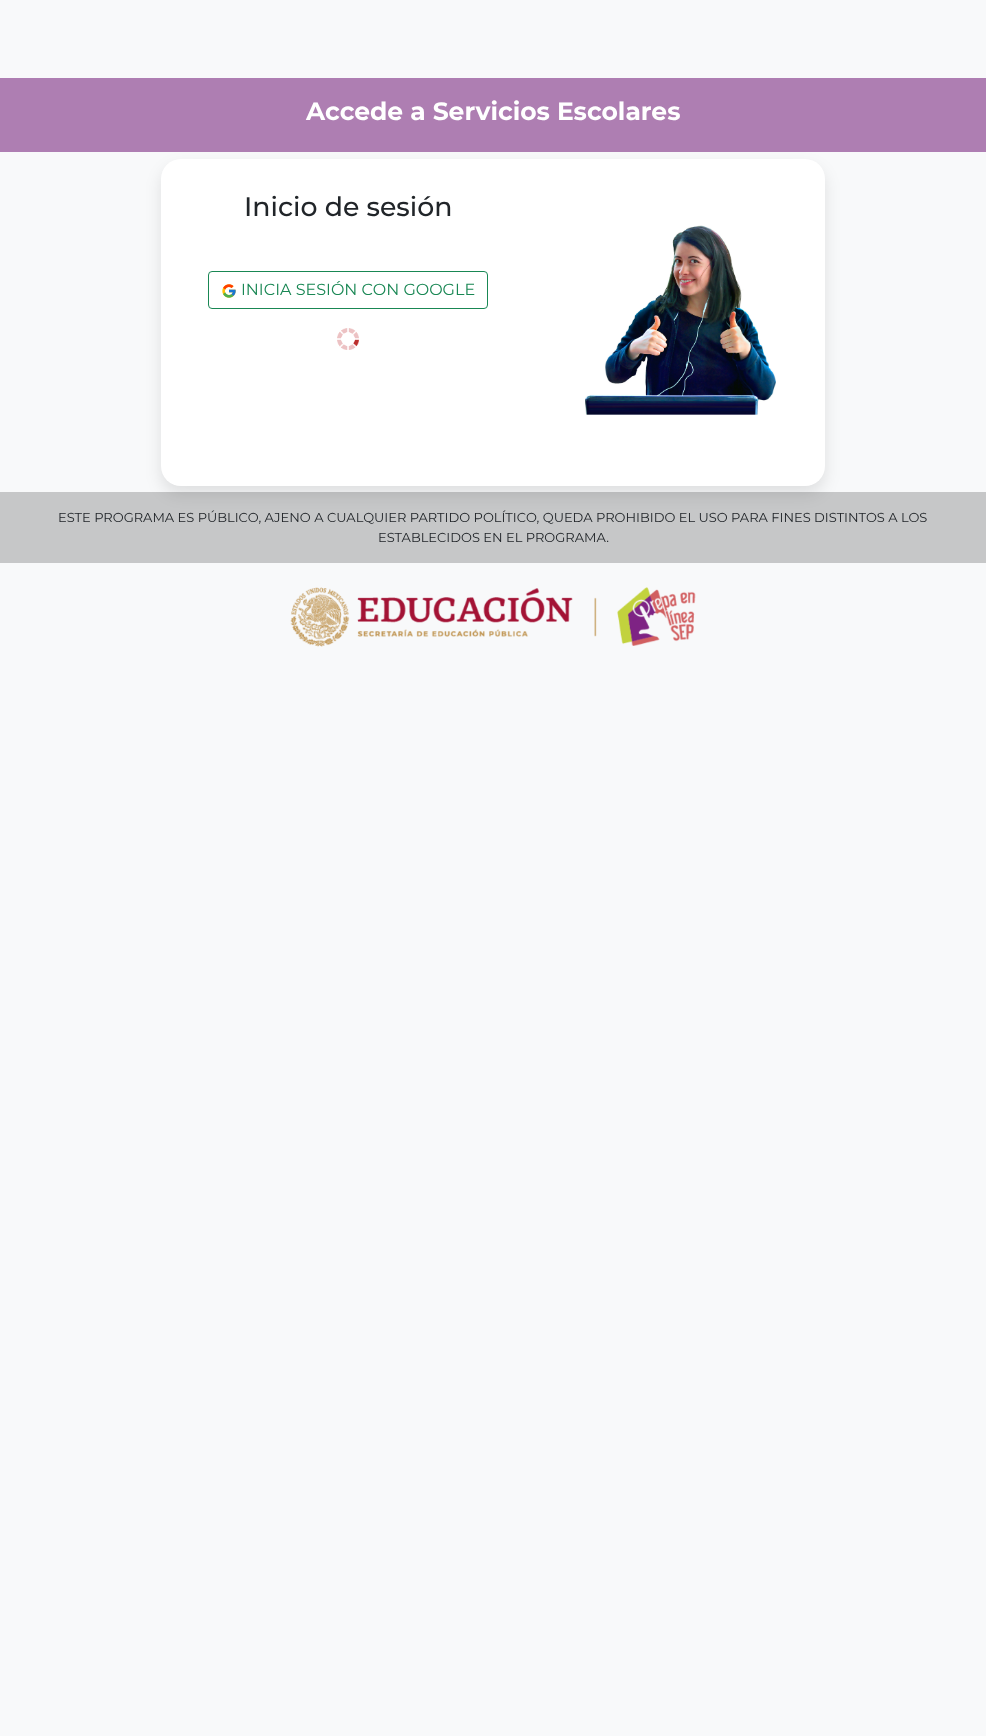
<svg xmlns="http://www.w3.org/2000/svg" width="986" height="1736">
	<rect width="100%" height="100%" fill="#F8F9FA" />
	<rect x="0" y="78" width="986" height="74" fill="#AE7EB2" />
	<text x="306" y="120" font-family="'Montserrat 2'" font-size="25" font-weight="100" fill="#FFFFFF">Accede a Servicios Escolares</text>
	<rect x="0" y="492" width="986" height="71" fill="#C6C7C8" />
	<rect x="161" y="167" width="664" height="327" rx="20" fill="#000000" fill-opacity="0.1" filter="blur(8px)" />
	<rect x="161" y="159" width="664" height="327" rx="20" fill="#FFFFFF" />
	<text x="244" y="216" font-family="'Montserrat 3'" font-size="26.75" font-weight="100" fill="#212529">Inicio de sesión</text>
	<rect x="208.5" y="271.5" width="279" height="37" rx="3.5" fill="none" stroke="#198754" />
	<image x="222" y="284" width="14" height="14" href="assets/img1.png" />
	<text x="241" y="295" font-family="Montserrat" font-size="16" font-weight="100" fill="#198754">INICIA SESIÓN CON GOOGLE</text>
	<image x="337" y="328" width="22" height="22" href="assets/img2.png" />
	<image x="585" y="225" width="191" height="190" href="assets/img3.png" />
	<g font-family="Montserrat" font-size="13" font-weight="100" fill="#212529">
		<text x="58" y="522">ESTE PROGRAMA ES PÚBLICO, AJENO A CUALQUIER PARTIDO POLÍTICO, QUEDA PROHIBIDO EL USO PARA FINES DISTINTOS A LOS</text>
		<text x="378" y="542">ESTABLECIDOS EN EL PROGRAMA.</text>
	</g>
	<image x="290" y="587" width="406" height="60" href="assets/img4.png" />
</svg>
